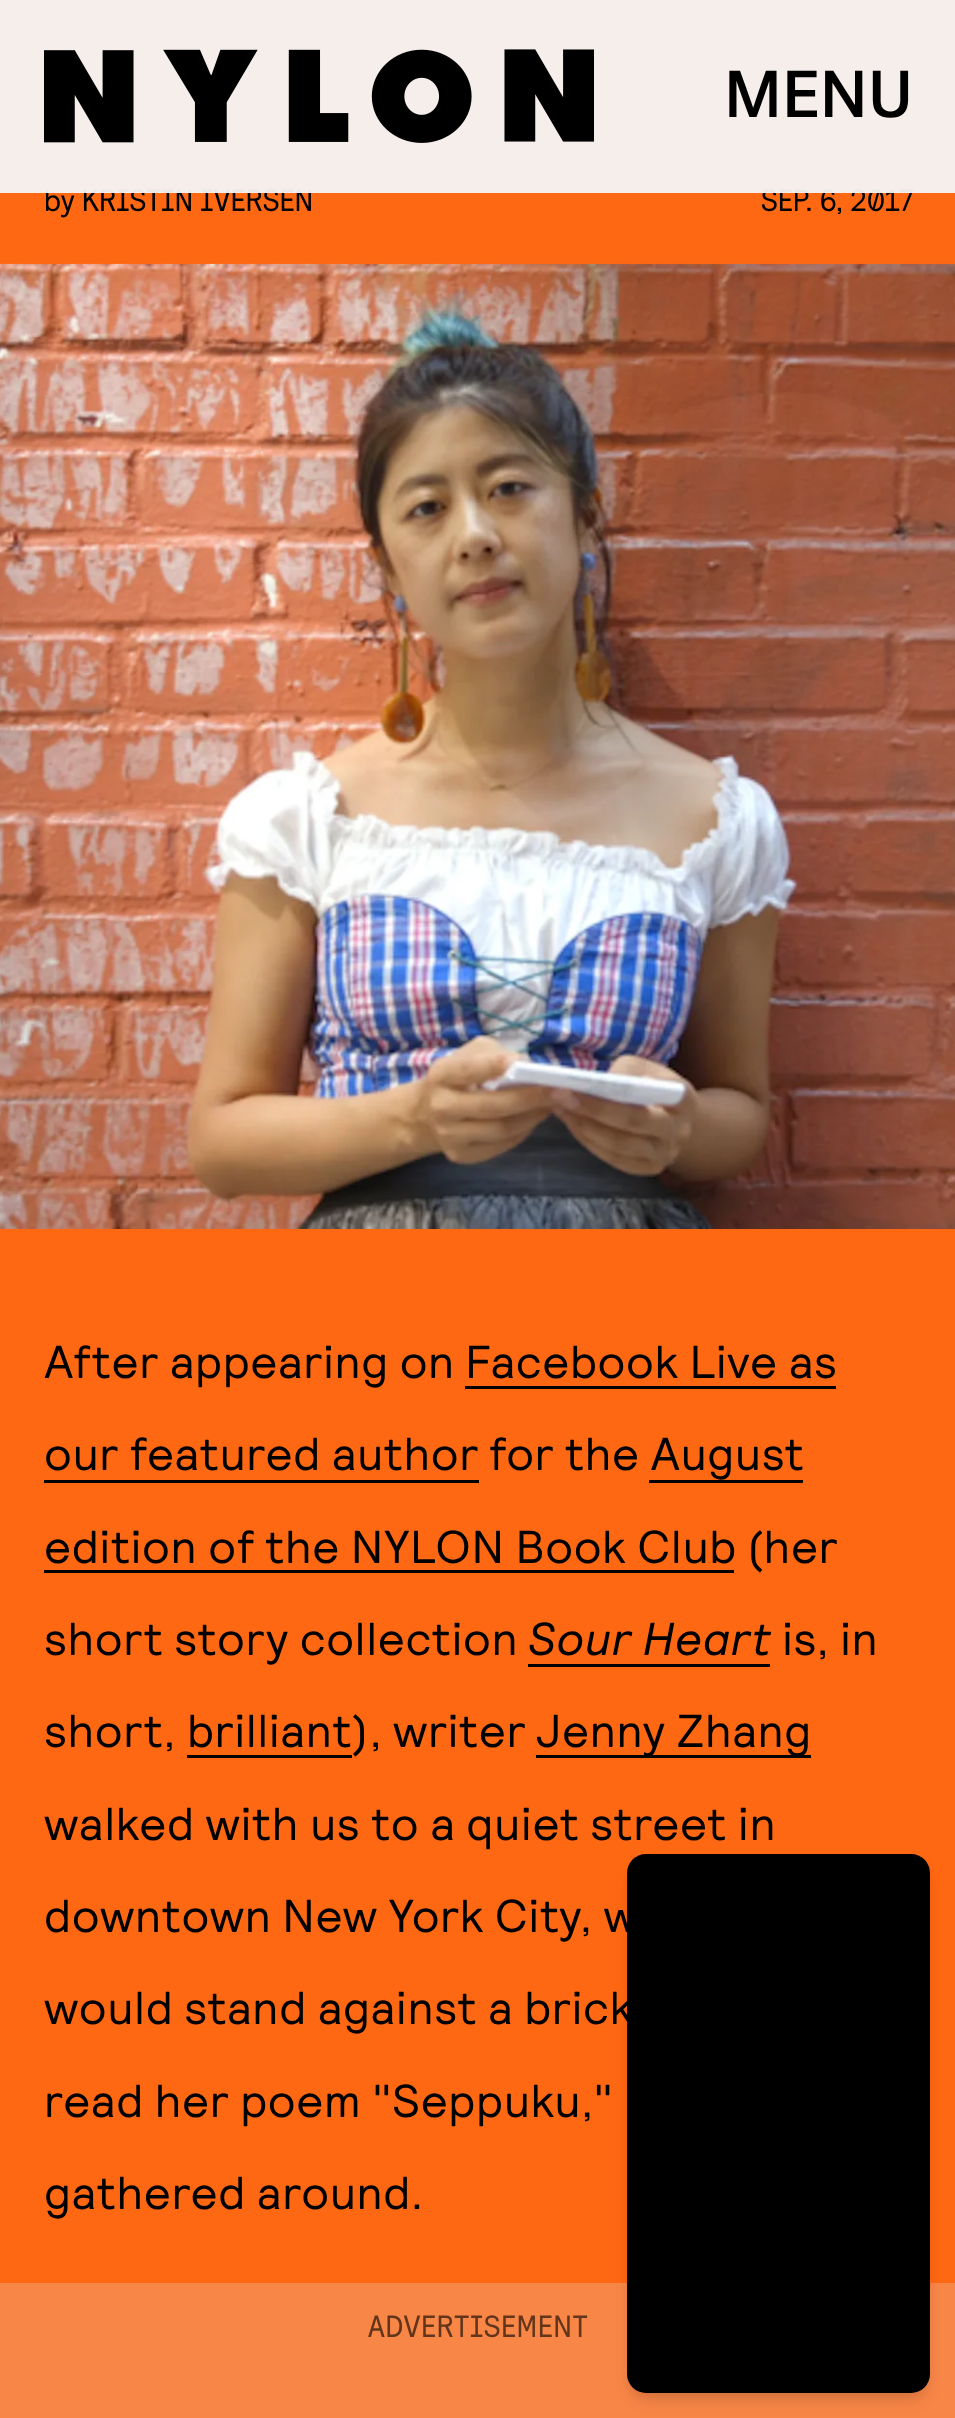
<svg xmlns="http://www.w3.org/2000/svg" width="955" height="2418">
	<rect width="100%" height="100%" fill="#FF6813" />
	<g font-family="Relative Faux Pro" font-size="30.75" fill="#000000">
		<text x="44" y="211">by KRISTIN IVERSEN</text>
		<text x="761" y="211">SEP. 6, 2017</text>
	</g>
	<rect x="0" y="0" width="955" height="193" fill="#F6F6F6" fill-opacity="0.95" />
	<image x="44" y="49" width="550" height="94" href="assets/img1.png" />
	<text x="724" y="117" font-family="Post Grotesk" font-size="66" font-weight="500" fill="#000000">MENU</text>
	<image x="0" y="263" width="955" height="966" href="assets/img2.png" />
	<g font-family="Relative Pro" font-size="46.25" letter-spacing="0.55" fill="#000000">
		<text x="44" y="1378">After appearing on</text>
		<text x="465" y="1378">Facebook Live as</text>
	</g>
	<rect x="465" y="1386" width="371" height="3" fill="#000000" />
	<text x="44" y="1470" font-family="Relative Pro" font-size="46.25" letter-spacing="0.55" fill="#000000">our featured author</text>
	<rect x="44" y="1480" width="435" height="3" fill="#000000" />
	<g font-family="Relative Pro" font-size="46.25" letter-spacing="0.55" fill="#000000">
		<text x="489" y="1470">for the August</text>
		<text x="44" y="1563">edition of the NYLON Book Club</text>
	</g>
	<rect x="649" y="1480" width="154" height="3" fill="#000000" />
	<rect x="44" y="1570" width="690" height="3" fill="#000000" />
	<g font-family="Relative Pro" font-size="46.25" letter-spacing="0.55" fill="#000000">
		<text x="746" y="1563">(her</text>
		<text x="44" y="1655">short story collection</text>
	</g>
	<text x="528" y="1655" font-family="Relative Pro" font-size="46.25" font-style="italic" letter-spacing="0.55" fill="#000000">Sour Heart</text>
	<rect x="528" y="1664" width="242" height="3" fill="#000000" />
	<g font-family="Relative Pro" font-size="46.25" letter-spacing="0.55" fill="#000000">
		<text x="782" y="1655">is, in</text>
		<text x="44" y="1747">short, brilliant), writer</text>
	</g>
	<rect x="536" y="1755" width="275" height="3" fill="#000000" />
	<text x="536" y="1747" font-family="Relative Pro" font-size="46.25" letter-spacing="0.55" fill="#000000">Jenny Zhang</text>
	<rect x="187" y="1755" width="165" height="3" fill="#000000" />
	<g font-family="Relative Pro" font-size="46.25" letter-spacing="0.55" fill="#000000">
		<text x="44" y="1840">walked with us to a quiet street in</text>
		<text x="44" y="1932">downtown New York City, w</text>
		<text x="44" y="2024">would stand against a brick</text>
		<text x="44" y="2117">read her poem "Seppuku,"</text>
		<text x="44" y="2209">gathered around.</text>
	</g>
	<rect x="0" y="2283" width="955" height="135" fill="#F88647" />
	<text x="368" y="2337" font-family="Relative Faux Pro" font-size="30.75" letter-spacing="0.55" fill="#63361C">ADVERTISEMENT</text>
	<rect x="633" y="1865" width="291" height="528" rx="14" fill="#000000" fill-opacity="0.1" filter="blur(5.5px)" />
	<rect x="630" y="1867" width="297" height="534" rx="17" fill="#000000" fill-opacity="0.1" filter="blur(8px)" />
	<rect x="627" y="1854" width="303" height="539" rx="19" fill="#000000" />
</svg>
